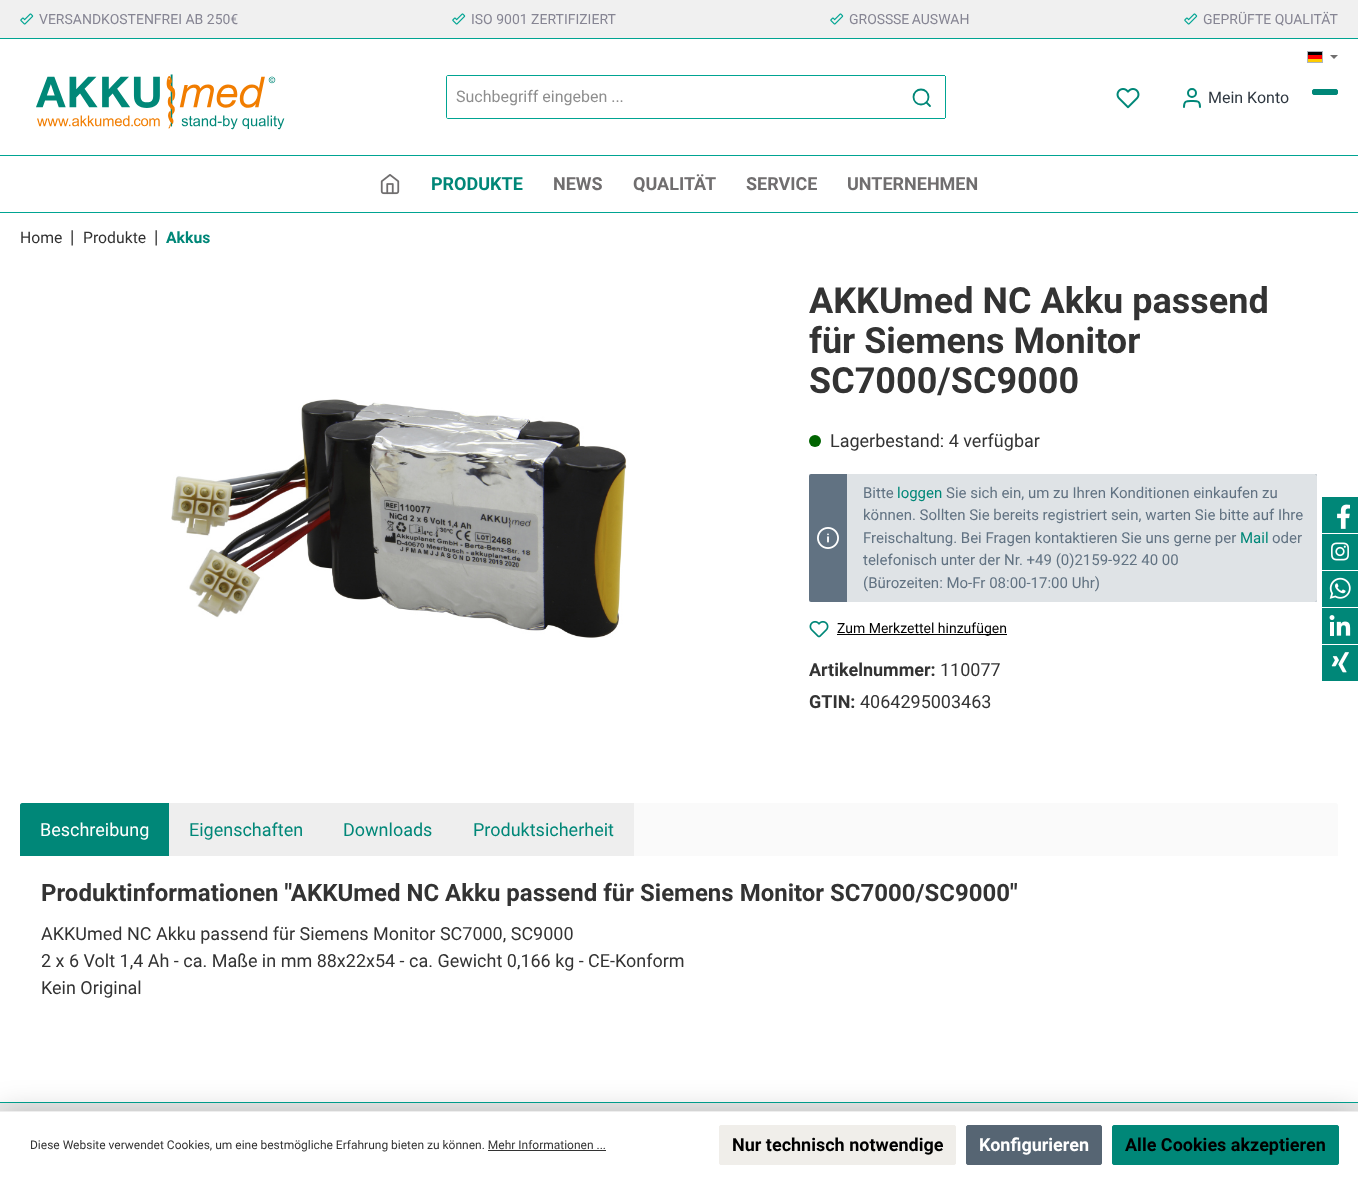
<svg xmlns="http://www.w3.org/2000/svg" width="1358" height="1178">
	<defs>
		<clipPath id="clip1"><rect x="20" y="803" width="1318" height="239" rx="2" /></clipPath>
	</defs>
	<rect width="100%" height="100%" fill="#FFFFFF" />
	<rect x="0" y="0" width="1358" height="38" fill="#F0F0F0" />
	<rect x="0" y="38" width="1358" height="1" fill="#00A492" />
	<image x="20" y="13" width="14" height="12" href="assets/img1.png" />
	<text x="39" y="24" font-family="Roboto" font-size="14" fill="#868593">VERSANDKOSTENFREI AB 250€</text>
	<image x="452" y="13" width="14" height="12" href="assets/img1.png" />
	<text x="471" y="24" font-family="Roboto" font-size="14" fill="#868593">ISO 9001 ZERTIFIZIERT</text>
	<image x="830" y="13" width="14" height="12" href="assets/img1.png" />
	<g font-family="Roboto" font-size="14" fill="#868593">
		<text x="849" y="24">GROSS</text>
		<text x="893" y="24" word-spacing="-1">SE AUSWAH</text>
	</g>
	<image x="1184" y="13" width="14" height="12" href="assets/img1.png" />
	<text x="1203" y="24" font-family="Roboto" font-size="14" fill="#868593">GEPRÜFTE QUALITÄT</text>
	<rect x="1308" y="52" width="14" height="3" fill="#000000" />
	<rect x="1308" y="55" width="14" height="4" fill="#FF0000" />
	<rect x="1308" y="59" width="14" height="3" fill="#FFCC00" />
	<rect x="1307.5" y="51.5" width="15" height="11" fill="none" stroke="#ADB5BD" />
	<path d="M1330 55H1338L1334 59Z" fill="#706F6F" />
	<image x="36" y="74" width="249" height="56" href="assets/img2.png" />
	<path d="M448 75.5H899.5V118.5H448C447 118.5 446.5 118 446.5 117V77C446.5 76 447 75.5 448 75.5Z" fill="none" stroke="#00A492" />
	<text x="456" y="102" font-family="Roboto" font-size="16" fill="#8E8E8E">Suchbegriff eingeben ...</text>
	<path d="M899 75H944C945 75 946 76 946 77V117C946 118 945 119 944 119H899Z" fill="#FFFFFF" />
	<rect x="899" y="75" width="46" height="1" fill="#00A492" />
	<rect x="945" y="76" width="1" height="42" fill="#00A492" />
	<rect x="899" y="118" width="46" height="1" fill="#00A492" />
	<circle cx="921" cy="97" r="7.5" fill="none" stroke="#008778" stroke-width="1.8" />
	<path d="M930 106L926.5 102.5" fill="none" stroke="#008778" stroke-width="1.8" stroke-linecap="round" stroke-linejoin="round" />
	<image x="1116" y="88" width="24" height="21" href="assets/img3.png" />
	<circle cx="1192" cy="93" r="4" fill="none" stroke="#008778" stroke-width="2" />
	<path d="M1200 107C1200 100.5 1197.5 101 1192 101C1186.5 101 1184 100.5 1184 107" fill="none" stroke="#008778" stroke-width="2" stroke-linecap="round" stroke-linejoin="round" />
	<text x="1208" y="103" font-family="Roboto" font-size="16" fill="#2E3740">Mein Konto</text>
	<rect x="1312.5" y="89.5" width="25" height="5" rx="1.5" fill="#008778" stroke="#008778" />
	<rect x="0" y="155" width="1358" height="1" fill="#00A492" />
	<rect x="0" y="212" width="1358" height="1" fill="#00A492" />
	<image x="380" y="174" width="20" height="21" href="assets/img4.png" />
	<text x="431" y="190" font-family="Roboto" font-size="18" font-weight="700" fill="#008778">PRODUKTE</text>
	<g font-family="Roboto" font-size="18" font-weight="700" fill="#706E6F">
		<text x="553" y="190">NEWS</text>
		<text x="633" y="190">QUALITÄT</text>
		<text x="746" y="190">SERVICE</text>
		<text x="847" y="190">UNTERNEHMEN</text>
	</g>
	<text x="20" y="243" font-family="Roboto" font-size="15.75" fill="#333333">Home</text>
	<text x="70" y="243" font-family="Roboto" font-size="18" fill="#333333">|</text>
	<text x="83" y="243" font-family="Roboto" font-size="15.75" fill="#333333">Produkte</text>
	<text x="154" y="243" font-family="Roboto" font-size="18" fill="#333333">|</text>
	<text x="166" y="243" font-family="Roboto" font-size="15.75" font-weight="700" fill="#008778">Akkus</text>
	<image x="171" y="399" width="456" height="239" href="assets/img5.png" />
	<g font-family="Roboto" font-size="36" font-weight="700" fill="#333333">
		<text x="809" y="313">AKKUmed NC Akku passend</text>
		<text x="809" y="353">für Siemens Monitor</text>
		<text x="809" y="393">SC7000/SC9000</text>
	</g>
	<circle cx="815" cy="441" r="6" fill="#006400" />
	<text x="830" y="447" font-family="Roboto" font-size="18" fill="#333333">Lagerbestand: 4 verfügbar</text>
	<rect x="809" y="474" width="508" height="128" rx="2" fill="#617282" />
	<image x="817" y="527" width="22" height="22" href="assets/img6.png" />
	<path d="M847 474H1315C1316 474 1317 475 1317 476V600C1317 601 1316 602 1315 602H847Z" fill="#DFE3E6" />
	<text x="863" y="498" font-family="Roboto" font-size="15" fill="#617282">Bitte</text>
	<text x="897" y="498" font-family="Roboto" font-size="15" fill="#008778">loggen</text>
	<g font-family="Roboto" font-size="15" fill="#617282">
		<text x="946" y="498">Sie sich ein, um zu Ihren Konditionen einkaufen zu</text>
		<text x="863" y="520">können. Sollten Sie bereits registriert sein, warten Sie bitte auf Ihre</text>
		<text x="863" y="543">Freischaltung. Bei Fragen kontaktieren Sie uns gerne per</text>
	</g>
	<text x="1240" y="543" font-family="Roboto" font-size="15" fill="#008778">Mail</text>
	<g font-family="Roboto" font-size="15" fill="#617282">
		<text x="1272" y="543">oder</text>
		<text x="863" y="565">telefonisch unter der Nr. +49 (0)2159-922 40 00</text>
		<text x="863" y="588">(Bürozeiten: Mo-Fr 08:00-17:00 Uhr)</text>
	</g>
	<image x="809" y="620" width="20" height="18" href="assets/img7.png" />
	<rect x="837" y="634" width="170" height="1" fill="#000000" />
	<text x="837" y="633" font-family="Roboto" font-size="14" fill="#000000">Zum Merkzettel hinzufügen</text>
	<text x="809" y="676" font-family="Roboto" font-size="18" font-weight="700" fill="#333333">Artikelnummer:</text>
	<text x="940" y="676" font-family="Roboto" font-size="18" fill="#333333">110077</text>
	<text x="809" y="708" font-family="Roboto" font-size="18" font-weight="700" fill="#333333">GTIN:</text>
	<text x="860" y="708" font-family="Roboto" font-size="18" fill="#333333">4064295003463</text>
	<g clip-path="url(#clip1)">
		<path d="M24 803H1336C1337 803 1338 804 1338 805V856H20V807C20 805 22 803 24 803Z" fill="#FAFAFA" />
	</g>
	<path d="M22 803H169V854H20V805C20 804 21 803 22 803Z" fill="#008778" />
	<rect x="20" y="854" width="149" height="2" fill="#008778" />
	<text x="40" y="836" font-family="Roboto" font-size="18" fill="#FFFFFF">Beschreibung</text>
	<rect x="169" y="803" width="465" height="53" fill="#EEEEEE" />
	<g font-family="Roboto" font-size="18" fill="#008778">
		<text x="189" y="836">Eigenschaften</text>
		<text x="343" y="836">Downloads</text>
		<text x="473" y="836">Produktsicherheit</text>
	</g>
	<text x="41" y="901" font-family="Roboto" font-size="24" font-weight="700" fill="#333333">Produktinformationen "AKKUmed NC Akku passend für Siemens Monitor SC7000/SC9000"</text>
	<g font-family="Roboto" font-size="18" fill="#333333">
		<text x="41" y="940">AKKUmed NC Akku passend für Siemens Monitor SC7000, SC9000</text>
		<text x="41" y="967">2 x 6 Volt 1,4 Ah - ca. Maße in mm 88x22x54 - ca. Gewicht 0,166 kg - CE-Konform</text>
		<text x="41" y="994">Kein Original</text>
	</g>
	<rect x="1322" y="497" width="36" height="36" fill="#008778" />
	<image x="1337" y="504" width="13" height="25" href="assets/img8.png" />
	<rect x="1322" y="534" width="36" height="36" fill="#008778" />
	<image x="1331" y="542" width="18" height="19" href="assets/img9.png" />
	<rect x="1322" y="571" width="36" height="36" fill="#008778" />
	<image x="1329" y="577" width="22" height="22" href="assets/img10.png" />
	<rect x="1322" y="608" width="36" height="36" fill="#008778" />
	<image x="1329" y="615" width="22" height="21" href="assets/img11.png" />
	<rect x="1322" y="645" width="36" height="36" fill="#008778" />
	<image x="1331" y="652" width="18" height="21" href="assets/img12.png" />
	<rect x="0" y="1103" width="1358" height="8" fill="#EBEBEB" />
	<rect x="0" y="1102" width="1358" height="1" fill="#00A492" />
	<rect x="0" y="1111" width="1358" height="67" fill="#000000" fill-opacity="0.2" filter="blur(15px)" />
	<rect x="0" y="1112" width="1358" height="66" fill="#FFFFFF" />
	<rect x="0" y="1111" width="1358" height="1" fill="#EEEEEE" />
	<text x="30" y="1149" font-family="Roboto" font-size="12" fill="#333333">Diese Website verwendet Cookies, um eine bestmögliche Erfahrung bieten zu können. Mehr Informationen ...</text>
	<rect x="488" y="1150" width="118" height="1" fill="#333333" />
	<rect x="719.5" y="1125.5" width="236" height="39" rx="1.5" fill="#F0EEEA" stroke="#F0EEEA" />
	<text x="732" y="1151" font-family="Roboto" font-size="18" font-weight="700" fill="#000000">Nur technisch notwendige</text>
	<rect x="966.5" y="1125.5" width="135" height="39" rx="1.5" fill="#566573" stroke="#566573" />
	<text x="979" y="1151" font-family="Roboto" font-size="18" font-weight="700" fill="#FFFFFF">Konfigurieren</text>
	<rect x="1112.5" y="1125.5" width="226" height="39" rx="1.5" fill="#008778" stroke="#008778" />
	<text x="1125" y="1151" font-family="Roboto" font-size="18" font-weight="700" fill="#000000">Alle Cookies akzeptieren</text>
</svg>
